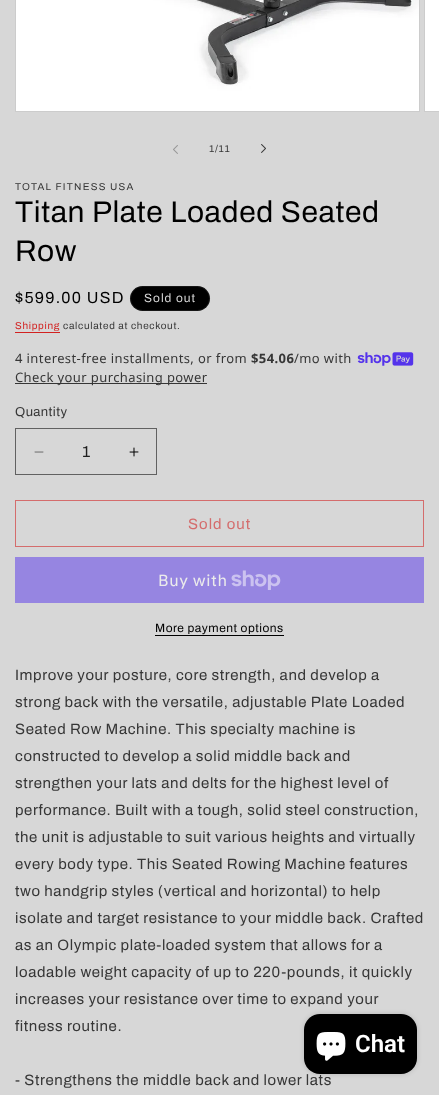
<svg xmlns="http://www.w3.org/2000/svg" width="439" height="1095">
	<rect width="100%" height="100%" fill="#D7D7D7" />
	<rect x="15.5" y="-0.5" width="404" height="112" fill="none" stroke="#CCCCCC" />
	<image x="16" y="0" width="403" height="111" href="assets/img1.png" />
	<rect x="424.5" y="-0.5" width="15" height="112" fill="none" stroke="#CCCCCC" />
	<rect x="425" y="0" width="14" height="111" fill="#FFFFFF" />
	<image x="173" y="145" width="5" height="9" href="assets/img2.png" />
	<text x="209" y="152" font-family="Archivo" font-size="10" letter-spacing="0.7" fill="#363636">1/11</text>
	<image x="261" y="144" width="5" height="9" href="assets/img3.png" />
	<text x="15" y="190" font-family="Archivo" font-size="10" letter-spacing="1.25" fill="#363636">TOTAL FITNESS USA</text>
	<g font-family="Archivo" font-size="30" letter-spacing="0.6" fill="#000000">
		<text x="15" y="222">Titan Plate Loaded Seated</text>
		<text x="15" y="261">Row</text>
	</g>
	<text x="15" y="303" font-family="Archivo" font-size="16" letter-spacing="1.25" fill="#000000">$599.00 USD</text>
	<rect x="130" y="286" width="80" height="25" rx="12.5" fill="#000000" />
	<rect x="130.5" y="286.5" width="79" height="24" rx="12" fill="none" stroke="#D7D7D7" stroke-opacity="0.1" />
	<text x="144" y="302" font-family="Archivo" font-size="12" letter-spacing="1" fill="#D7D7D7">Sold out</text>
	<text x="15" y="329" font-family="Archivo" font-size="10" letter-spacing="0.7" fill="#D22120">Shipping</text>
	<rect x="15" y="332" width="45" height="1" fill="#D22120" />
	<text x="63" y="329" font-family="Archivo" font-size="10" letter-spacing="0.7" fill="#363636">calculated at checkout.</text>
	<text x="15" y="363" font-family="Noto Sans" font-size="13" letter-spacing="0.4" fill="#363636">4 interest-free installments, or from</text>
	<text x="251" y="363" font-family="Noto Sans" font-size="13" font-weight="700" letter-spacing="0.4" fill="#363636">$54.06</text>
	<text x="294" y="363" font-family="Noto Sans" font-size="13" letter-spacing="0.4" fill="#363636">/mo with</text>
	<image x="357" y="352" width="57" height="14" href="assets/img4.png" />
	<rect x="15" y="383" width="192" height="1" fill="#363636" />
	<text x="15" y="382" font-family="Noto Sans" font-size="13" letter-spacing="0.4" fill="#363636">Check your purchasing power</text>
	<text x="15" y="416" font-family="Archivo" font-size="13" letter-spacing="0.4" fill="#363636">Quantity</text>
	<image x="34" y="451" width="10" height="2" href="assets/img5.png" />
	<image x="129" y="447" width="10" height="10" href="assets/img6.png" />
	<rect x="15.5" y="428.5" width="141" height="46" fill="none" stroke="#616161" />
	<text x="82" y="457" font-family="Archivo" font-size="16" fill="#202020">1</text>
	<rect x="15.5" y="500.5" width="408" height="46" fill="none" stroke="#D46C6C" />
	<text x="188" y="529" font-family="Archivo" font-size="15" letter-spacing="1" fill="#D46C6C">Sold out</text>
	<rect x="15" y="557" width="409" height="46" fill="#9685E1" />
	<text x="158" y="586" font-family="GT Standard" font-size="16" letter-spacing="0.6" fill="#EBEBEB">Buy with</text>
	<image x="231" y="570" width="50" height="20" href="assets/img7.png" />
	<text x="155" y="632" font-family="Archivo" font-size="12" letter-spacing="0.5" fill="#000000">More payment options</text>
	<rect x="155" y="635" width="129" height="1" fill="#000000" />
	<g font-family="Archivo" font-size="15" letter-spacing="0.6" fill="#363636">
		<text x="15" y="680">Improve your posture, core strength, and develop a</text>
		<text x="15" y="707">strong back with the versatile, adjustable Plate Loaded</text>
		<text x="15" y="734">Seated Row Machine. This specialty machine is</text>
		<text x="15" y="761">constructed to develop a solid middle back and</text>
		<text x="15" y="788">strengthen your lats and delts for the highest level of</text>
		<text x="15" y="815">performance. Built with a tough, solid steel construction,</text>
		<text x="15" y="842">the unit is adjustable to suit various heights and virtually</text>
		<text x="15" y="869">every body type. This Seated Rowing Machine features</text>
		<text x="15" y="896">two handgrip styles (vertical and horizontal) to help</text>
		<text x="15" y="923">isolate and target resistance to your middle back. Crafted</text>
		<text x="15" y="950">as an Olympic plate-loaded system that allows for a</text>
		<text x="15" y="977">loadable weight capacity of up to 220-pounds, it quickly</text>
		<text x="15" y="1004">increases your resistance over time to expand your</text>
		<text x="15" y="1031">fitness routine.</text>
		<text x="15" y="1085">- Strengthens the middle back and lower lats</text>
	</g>
	<rect x="304" y="1014" width="113" height="60" rx="16" fill="#000000" fill-opacity="0.15" filter="blur(2.5px)" />
	<rect x="304" y="1014" width="113" height="60" rx="16" fill="#000000" />
	<image x="316" y="1032" width="30" height="29" href="assets/img8.png" />
	<text x="355" y="1052" font-family="Roboto" font-size="24" font-weight="600" fill="#FFFFFF">Chat</text>
</svg>
